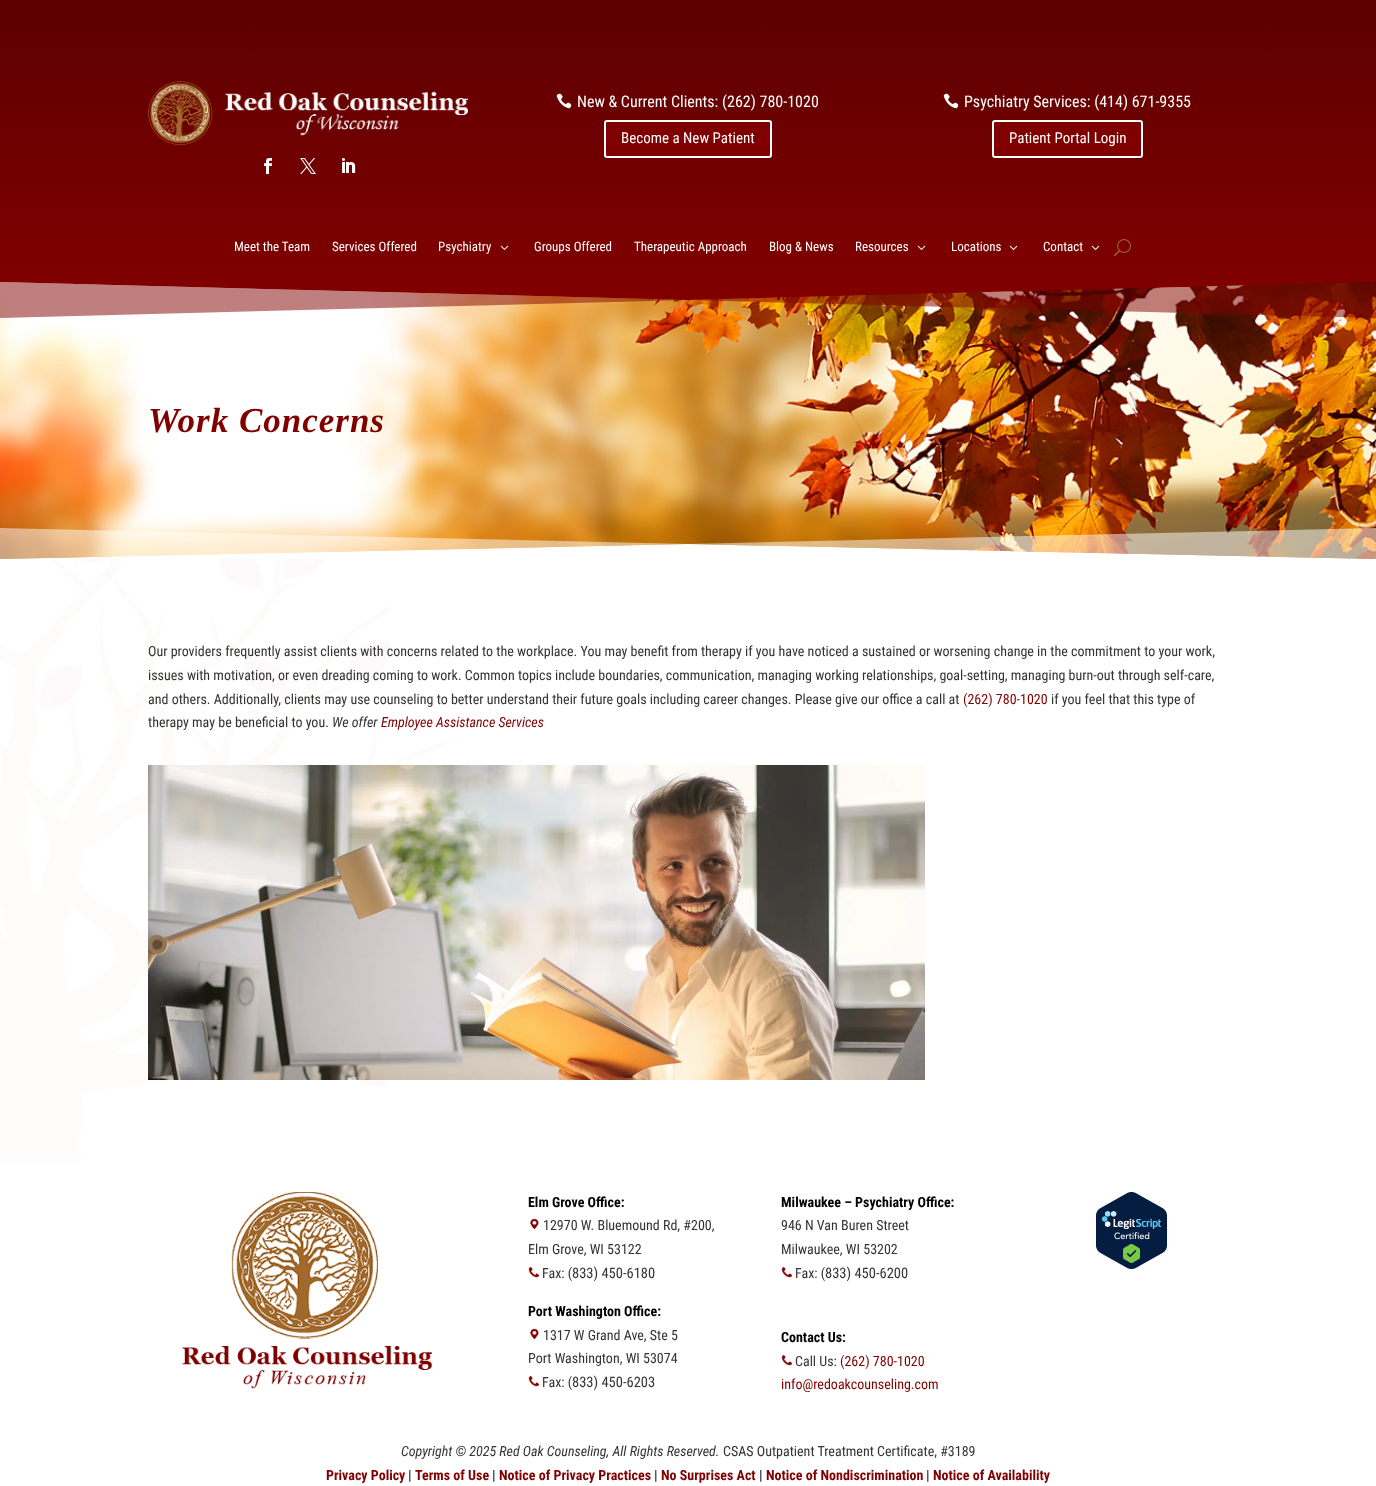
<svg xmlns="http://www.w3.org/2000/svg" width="1376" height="1486">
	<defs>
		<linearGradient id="g1" gradientUnits="userSpaceOnUse" x1="688" y1="0" x2="688" y2="282"><stop offset="0" stop-color="#5C0000" /><stop offset="1" stop-color="#800000" /></linearGradient>
	</defs>
	<rect width="100%" height="100%" fill="#FFFFFF" />
	<rect x="0" y="0" width="1376" height="282" fill="url(#g1)" />
	<image x="148" y="81" width="320" height="64" href="assets/img1.png" />
	<image x="264" y="158" width="8" height="16" href="assets/img2.png" />
	<image x="300" y="158" width="16" height="16" href="assets/img3.png" />
	<image x="342" y="158" width="14" height="15" href="assets/img4.png" />
	<image x="556" y="93" width="16" height="16" href="assets/img5.png" />
	<text x="577" y="107" font-family="Roboto Condensed" font-size="16" fill="#FFFFFF">New &amp; Current Clients: (262) 780-1020</text>
	<rect x="605" y="121" width="166" height="36" rx="2" fill="#800000" stroke="#FFFFFF" stroke-width="2" />
	<text x="621" y="143" font-family="Roboto Condensed" font-size="15" fill="#FFFFFF">Become a New Patient</text>
	<image x="943" y="93" width="16" height="16" href="assets/img5.png" />
	<text x="964" y="107" font-family="Roboto Condensed" font-size="16" fill="#FFFFFF">Psychiatry Services: (414) 671-9355</text>
	<rect x="993" y="121" width="149" height="36" rx="2" fill="#800000" stroke="#FFFFFF" stroke-width="2" />
	<text x="1009" y="143" font-family="Roboto Condensed" font-size="15" fill="#FFFFFF">Patient Portal Login</text>
	<g font-family="Roboto Condensed" font-size="13" fill="#FFFFFF">
		<text x="234" y="251">Meet the Team</text>
		<text x="332" y="251">Services Offered</text>
		<text x="438" y="251">Psychiatry</text>
	</g>
	<image x="500" y="245" width="9" height="5" href="assets/img6.png" />
	<g font-family="Roboto Condensed" font-size="13" fill="#FFFFFF">
		<text x="534" y="251">Groups Offered</text>
		<text x="634" y="251">Therapeutic Approach</text>
		<text x="769" y="251">Blog &amp; News</text>
		<text x="855" y="251">Resources</text>
	</g>
	<image x="917" y="245" width="9" height="5" href="assets/img6.png" />
	<text x="951" y="251" font-family="Roboto Condensed" font-size="13" fill="#FFFFFF">Locations</text>
	<image x="1009" y="245" width="9" height="5" href="assets/img6.png" />
	<text x="1043" y="251" font-family="Roboto Condensed" font-size="13" fill="#FFFFFF">Contact</text>
	<image x="1091" y="245" width="9" height="5" href="assets/img6.png" />
	<image x="1114" y="239" width="17" height="18" href="assets/img7.png" />
	<image x="0" y="282" width="1376" height="277" href="assets/img8.png" />
	<path d="M0 282L688 300L1376 282V318L688 300L0 318Z" fill="#800000" fill-opacity="0.5" />
	<path d="M0 282H1376L688 300Z" fill="#800000" />
	<text x="148" y="432" font-family="Liberation Serif" font-size="35" font-weight="700" font-style="italic" letter-spacing="1" fill="#800000">Work Concerns</text>
	<path d="M0 559L688 544L1376 559V528L688 544L0 528Z" fill="#FFFFFF" fill-opacity="0.5" />
	<path d="M0 559H1376L688 544Z" fill="#FFFFFF" />
	<image x="0" y="559" width="463" height="602" href="assets/img9.png" />
	<g font-family="Roboto Condensed" font-size="14" fill="#333333">
		<text x="148" y="656">Our providers frequently assist clients with concerns related to the workplace. You may benefit from therapy if you have noticed a sustained or worsening change in the commitment to your work,</text>
		<text x="148" y="680">issues with motivation, or even dreading coming to work. Common topics include boundaries, communication, managing working relationships, goal-setting, managing burn-out through self-care,</text>
		<text x="148" y="704">and others. Additionally, clients may use counseling to better understand their future goals including career changes. Please give our office a call at</text>
	</g>
	<text x="963" y="704" font-family="Roboto Condensed" font-size="14" fill="#800000">(262) 780-1020</text>
	<g font-family="Roboto Condensed" font-size="14" fill="#333333">
		<text x="1051" y="704">if you feel that this type of</text>
		<text x="148" y="727">therapy may be beneficial to you.</text>
	</g>
	<text x="332" y="727" font-family="Roboto Condensed" font-size="14" font-style="italic" fill="#333333">We offer</text>
	<text x="381" y="727" font-family="Roboto Condensed" font-size="14" font-style="italic" fill="#800000">Employee Assistance Services</text>
	<image x="148" y="765" width="777" height="315" href="assets/img10.png" />
	<image x="182" y="1192" width="250" height="197" href="assets/img11.png" />
	<text x="528" y="1207" font-family="Roboto Condensed" font-size="14" font-weight="700" fill="#000000">Elm Grove Office:</text>
	<image x="530" y="1218" width="9" height="12" href="assets/img12.png" />
	<g font-family="Roboto Condensed" font-size="14" fill="#333333">
		<text x="543" y="1230">12970 W. Bluemound Rd, #200,</text>
		<text x="528" y="1254">Elm Grove, WI 53122</text>
	</g>
	<image x="528" y="1267" width="11" height="11" href="assets/img13.png" />
	<text x="542" y="1278" font-family="Roboto Condensed" font-size="14" fill="#333333">Fax: (</text>
	<text x="572" y="1278" font-family="Roboto Condensed" font-size="14.5" fill="#333333">833) 450-6180</text>
	<text x="528" y="1316" font-family="Roboto Condensed" font-size="14" font-weight="700" fill="#000000">Port Washington Office:</text>
	<image x="530" y="1328" width="9" height="12" href="assets/img12.png" />
	<g font-family="Roboto Condensed" font-size="14" fill="#333333">
		<text x="543" y="1340">1317 W Grand Ave, Ste 5</text>
		<text x="528" y="1363">Port Washington, WI 53074</text>
	</g>
	<image x="528" y="1376" width="11" height="11" href="assets/img13.png" />
	<text x="542" y="1387" font-family="Roboto Condensed" font-size="14" fill="#333333">Fax: (</text>
	<text x="572" y="1387" font-family="Roboto Condensed" font-size="14.5" fill="#333333">833) 450-6203</text>
	<text x="781" y="1207" font-family="Roboto Condensed" font-size="14" font-weight="700" fill="#000000">Milwaukee – Psychiatry Office:</text>
	<g font-family="Roboto Condensed" font-size="14" fill="#333333">
		<text x="781" y="1230">946 N Van Buren Street</text>
		<text x="781" y="1254">Milwaukee, WI 53202</text>
	</g>
	<image x="781" y="1267" width="11" height="11" href="assets/img13.png" />
	<text x="795" y="1278" font-family="Roboto Condensed" font-size="14" fill="#333333">Fax: (</text>
	<text x="825" y="1278" font-family="Roboto Condensed" font-size="14.5" fill="#333333">833) 450-6200</text>
	<text x="781" y="1342" font-family="Roboto Condensed" font-size="14" font-weight="700" fill="#000000">Contact Us:</text>
	<image x="781" y="1355" width="11" height="11" href="assets/img13.png" />
	<text x="795" y="1366" font-family="Roboto Condensed" font-size="14" fill="#333333">Call Us:</text>
	<g font-family="Roboto Condensed" font-size="14" fill="#800000">
		<text x="840" y="1366">(262) 780-1020</text>
		<text x="781" y="1389">info@redoakcounseling.com</text>
	</g>
	<image x="1096" y="1192" width="71" height="77" href="assets/img14.png" />
	<text x="401" y="1456" font-family="Roboto Condensed" font-size="14" font-style="italic" fill="#333333">Copyright © 2025 Red Oak Counseling, All Rights Reserved.</text>
	<text x="723" y="1456" font-family="Roboto Condensed" font-size="14" fill="#333333">CSAS Outpatient Treatment Certificate, #3189</text>
	<text x="326" y="1480" font-family="Roboto Condensed" font-size="14" font-weight="700" fill="#800000">Privacy Policy</text>
	<text x="408" y="1480" font-family="Roboto Condensed" font-size="14" font-weight="700" fill="#333333">|</text>
	<text x="415" y="1480" font-family="Roboto Condensed" font-size="14" font-weight="700" fill="#800000">Terms of Use</text>
	<text x="492" y="1480" font-family="Roboto Condensed" font-size="14" font-weight="700" fill="#333333">|</text>
	<text x="499" y="1480" font-family="Roboto Condensed" font-size="14" font-weight="700" fill="#800000">Notice of Privacy Practices</text>
	<text x="654" y="1480" font-family="Roboto Condensed" font-size="14" font-weight="700" fill="#333333">|</text>
	<text x="661" y="1480" font-family="Roboto Condensed" font-size="14" font-weight="700" fill="#800000">No Surprises Act</text>
	<text x="759" y="1480" font-family="Roboto Condensed" font-size="14" font-weight="700" fill="#333333">|</text>
	<text x="766" y="1480" font-family="Roboto Condensed" font-size="14" font-weight="700" fill="#800000">Notice of Nondiscrimination</text>
	<text x="926" y="1480" font-family="Roboto Condensed" font-size="14" font-weight="700" fill="#333333">|</text>
	<text x="933" y="1480" font-family="Roboto Condensed" font-size="14" font-weight="700" fill="#800000">Notice of Availability</text>
</svg>
